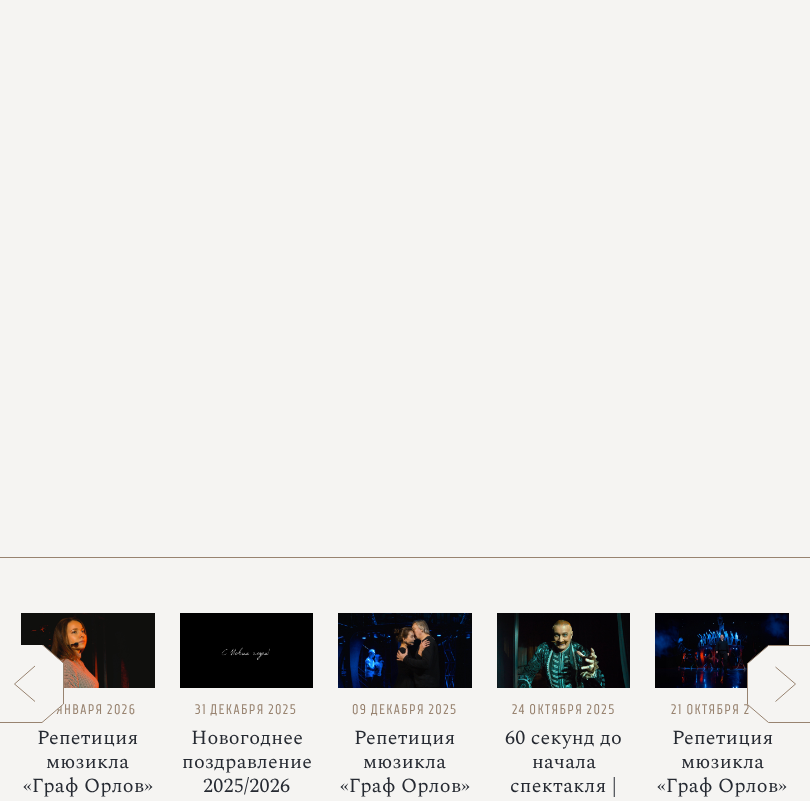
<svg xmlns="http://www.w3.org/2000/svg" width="810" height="801">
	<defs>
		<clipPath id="clip1"><rect x="0" y="645" width="64" height="78" /></clipPath>
	</defs>
	<rect width="100%" height="100%" fill="#F5F4F2" />
	<rect x="0" y="557" width="810" height="1" fill="#988370" />
	<image x="21" y="613" width="134" height="75" href="assets/img1.png" />
	<text x="56" y="714" font-family="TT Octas" font-size="14" letter-spacing="1.4" fill="#988370">ЯНВАРЯ 2026</text>
	<g clip-path="url(#clip1)">
		<path d="M0 723H-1V644H42L63 663V704L42 723Z" fill="#F5F4F2" />
		<path d="M-.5 722.5H-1V644.5H42L63.5 663V704L42 722.5Z" fill="none" stroke="#988370" />
	</g>
	<path d="M35 666L14.5 684L35 701.5" fill="none" stroke="#988370" />
	<image x="655" y="613" width="134" height="75" href="assets/img5.png" />
	<text x="671" y="714" font-family="TT Octas" font-size="14" letter-spacing="1.4" fill="#988370">21 ОКТЯБРЯ 2</text>
	<path d="M810 722H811V645H769L747 664V704L769 722Z" fill="#F5F4F2" />
	<path d="M810 722.5H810.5V645.5H768.5L747.5 663.5V704.5L768.5 722.5Z" fill="none" stroke="#988370" />
	<path d="M775.5 667L795.5 684L775.5 701.5" fill="none" stroke="#988370" />
	<g font-family="Spectral" font-size="20" letter-spacing="0.25" fill="#262A32">
		<text x="37" y="744">Репетиция</text>
		<text x="46" y="768">мюзикла</text>
		<text x="23" y="792">«Граф Орлов»</text>
	</g>
	<image x="180" y="613" width="133" height="75" href="assets/img2.png" />
	<text x="195" y="714" font-family="TT Octas" font-size="14" letter-spacing="1.4" fill="#988370">31 ДЕКАБРЯ 2025</text>
	<g font-family="Spectral" font-size="20" letter-spacing="0.25" fill="#262A32">
		<text x="191" y="744">Новогоднее</text>
		<text x="182" y="768">поздравление</text>
		<text x="203" y="792">2025/2026</text>
	</g>
	<image x="338" y="613" width="134" height="75" href="assets/img3.png" />
	<text x="352" y="714" font-family="TT Octas" font-size="14" letter-spacing="1.4" fill="#988370">09 ДЕКАБРЯ 2025</text>
	<g font-family="Spectral" font-size="20" letter-spacing="0.25" fill="#262A32">
		<text x="354" y="744">Репетиция</text>
		<text x="363" y="768">мюзикла</text>
		<text x="340" y="792">«Граф Орлов»</text>
	</g>
	<image x="497" y="613" width="133" height="75" href="assets/img4.png" />
	<text x="512" y="714" font-family="TT Octas" font-size="14" letter-spacing="1.4" fill="#988370">24 ОКТЯБРЯ 2025</text>
	<g font-family="Spectral" font-size="20" letter-spacing="0.25" fill="#262A32">
		<text x="505" y="744">60 секунд до</text>
		<text x="532" y="768">начала</text>
		<text x="510" y="792">спектакля |</text>
		<text x="672" y="744">Репетиция</text>
		<text x="681" y="768">мюзикла</text>
		<text x="657" y="792">«Граф Орлов»</text>
	</g>
</svg>
